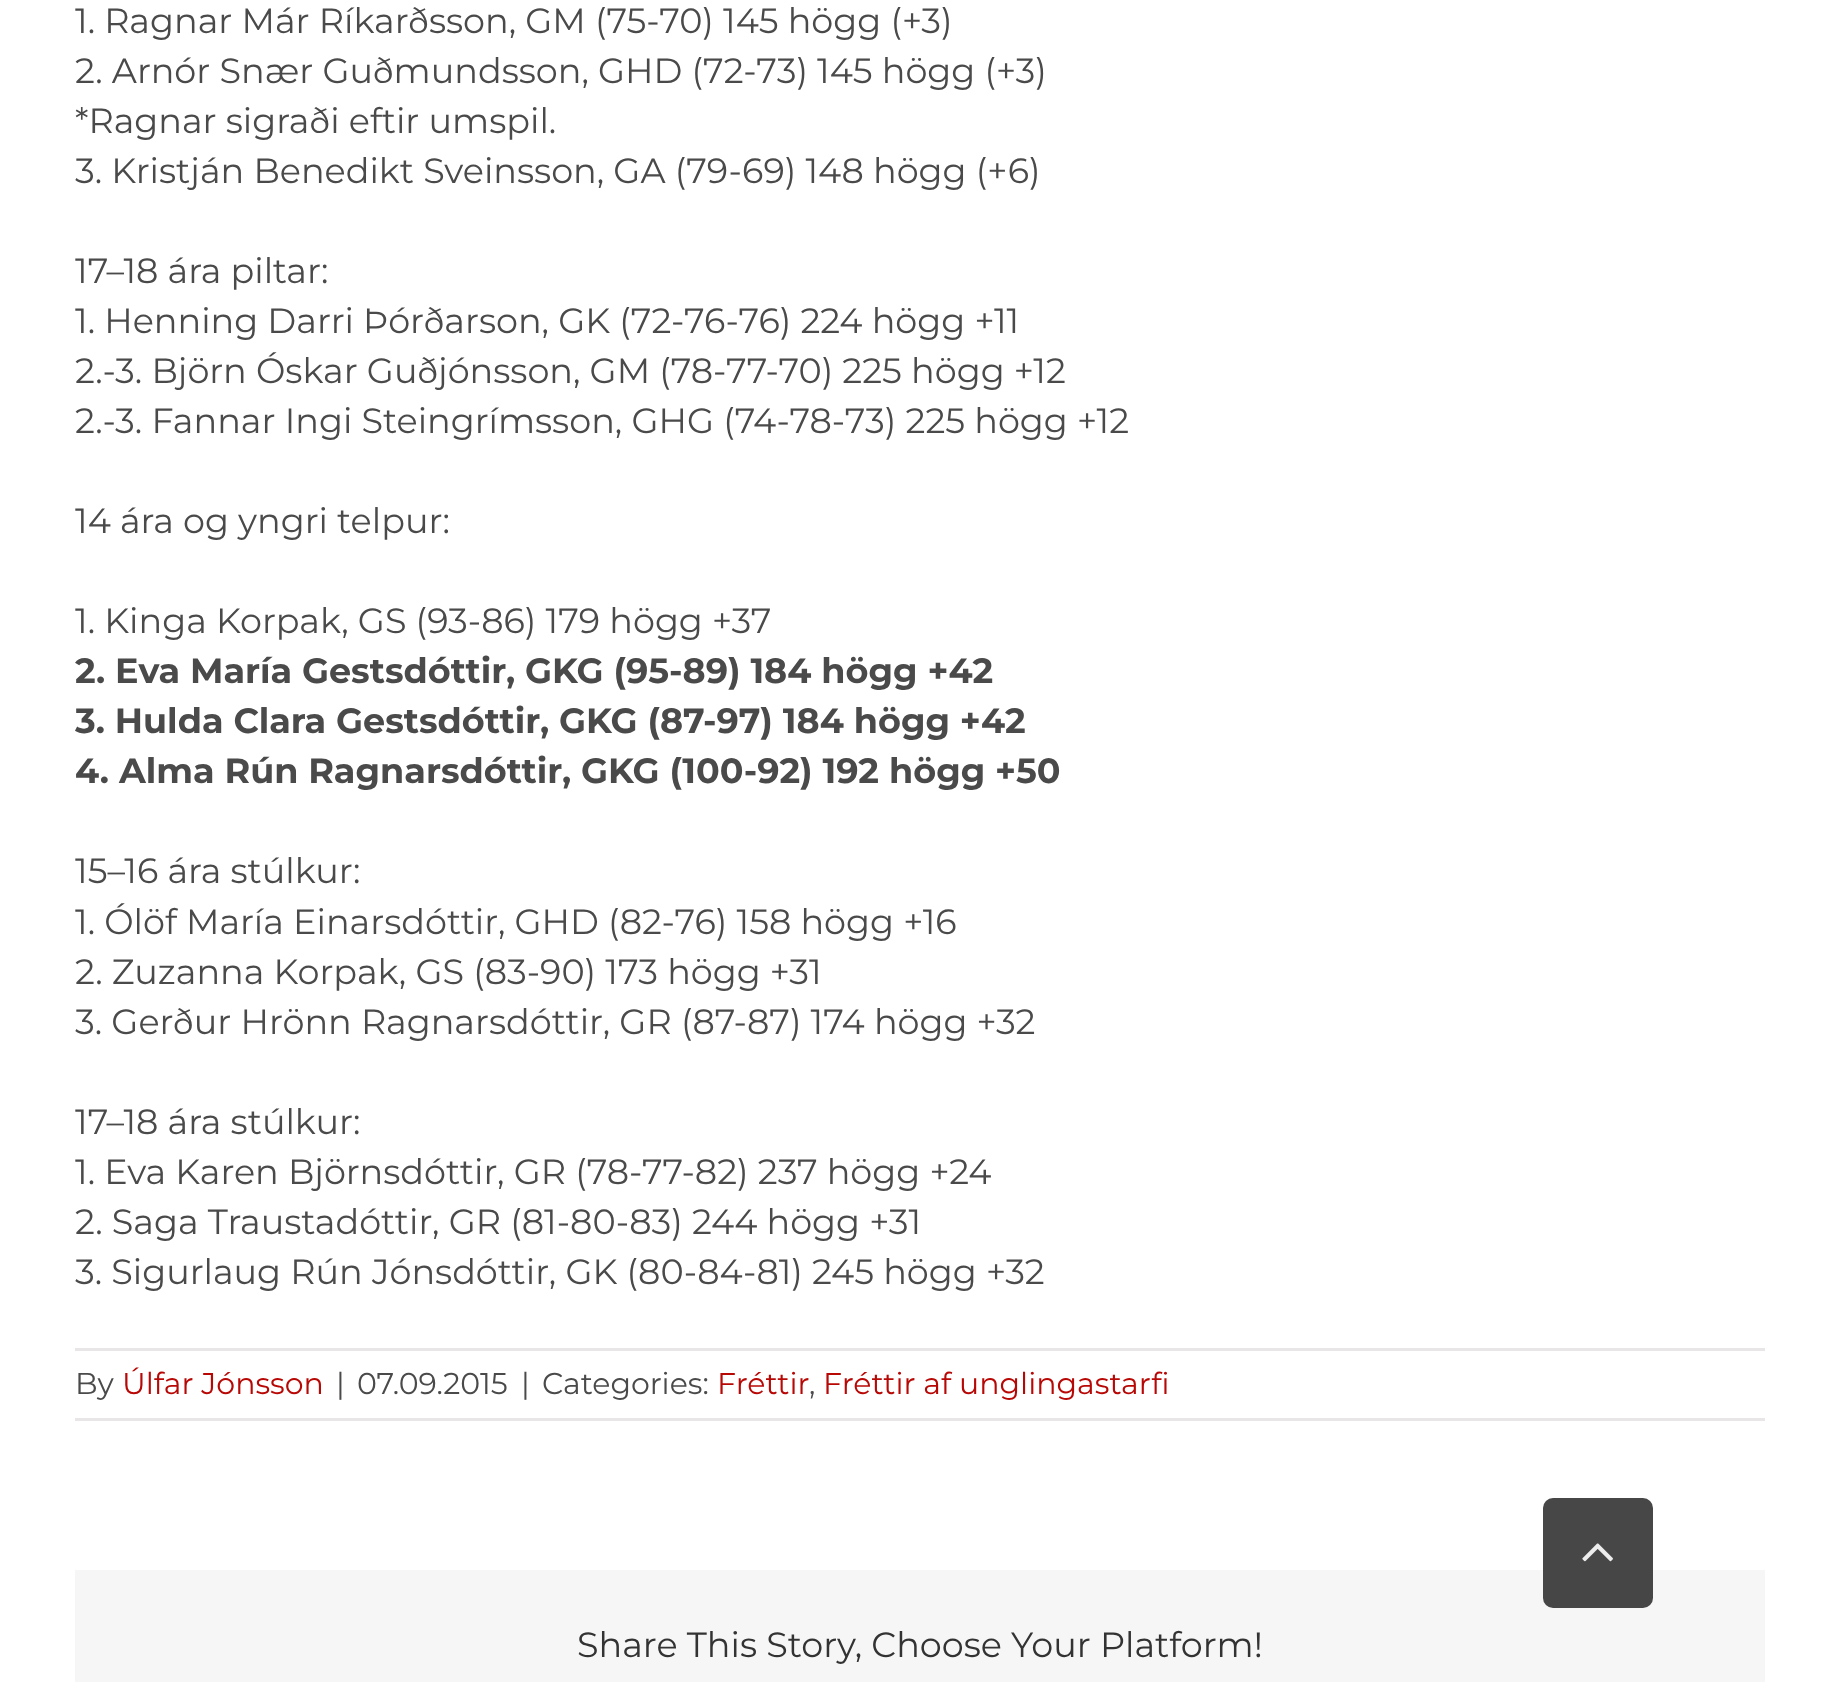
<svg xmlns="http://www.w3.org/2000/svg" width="1839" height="1682">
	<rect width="100%" height="100%" fill="#FFFFFF" />
	<g font-family="Montserrat" font-size="35" fill="#4A4A4A">
		<text x="75" y="33">1. Ragnar Már Ríkarðsson, GM (75-70) 145 högg (+3)</text>
		<text x="75" y="83">2. Arnór Snær Guðmundsson, GHD (72-73) 145 högg (+3)</text>
		<text x="75" y="133">*Ragnar sigraði eftir umspil.</text>
		<text x="75" y="183">3. Kristján Benedikt Sveinsson, GA (79-69) 148 högg (+6)</text>
		<text x="75" y="283">17–18 ára piltar:</text>
		<text x="75" y="333">1. Henning Darri Þórðarson, GK (72-76-76) 224 högg +11</text>
		<text x="75" y="383">2.-3. Björn Óskar Guðjónsson, GM (78-77-70) 225 högg +12</text>
		<text x="75" y="433">2.-3. Fannar Ingi Steingrímsson, GHG (74-78-73) 225 högg +12</text>
		<text x="75" y="533">14 ára og yngri telpur:</text>
		<text x="75" y="633">1. Kinga Korpak, GS (93-86) 179 högg +37</text>
	</g>
	<g font-family="Montserrat" font-size="35" font-weight="700" fill="#4A4A4A">
		<text x="75" y="683">2. Eva María Gestsdóttir, GKG (95-89) 184 högg +42</text>
		<text x="75" y="733">3. Hulda Clara Gestsdóttir, GKG (87-97) 184 högg +42</text>
		<text x="75" y="783">4. Alma Rún Ragnarsdóttir, GKG (100-92) 192 högg +50</text>
	</g>
	<g font-family="Montserrat" font-size="35" fill="#4A4A4A">
		<text x="75" y="883">15–16 ára stúlkur:</text>
		<text x="75" y="934">1. Ólöf María Einarsdóttir, GHD (82-76) 158 högg +16</text>
		<text x="75" y="984">2. Zuzanna Korpak, GS (83-90) 173 högg +31</text>
		<text x="75" y="1034">3. Gerður Hrönn Ragnarsdóttir, GR (87-87) 174 högg +32</text>
		<text x="75" y="1134">17–18 ára stúlkur:</text>
		<text x="75" y="1184">1. Eva Karen Björnsdóttir, GR (78-77-82) 237 högg +24</text>
		<text x="75" y="1234">2. Saga Traustadóttir, GR (81-80-83) 244 högg +31</text>
		<text x="75" y="1284">3. Sigurlaug Rún Jónsdóttir, GK (80-84-81) 245 högg +32</text>
	</g>
	<rect x="75" y="1348" width="1690" height="3" fill="#E8E6E6" />
	<rect x="75" y="1418" width="1690" height="3" fill="#E8E6E6" />
	<text x="75" y="1394" font-family="Montserrat" font-size="30" fill="#4A4A4A">By</text>
	<text x="122" y="1394" font-family="Montserrat" font-size="30" fill="#B70805">Úlfar Jónsson</text>
	<g font-family="Montserrat" font-size="30" fill="#4A4A4A">
		<text x="336" y="1394">|</text>
		<text x="357" y="1394">07.09.2015</text>
		<text x="521" y="1394">|</text>
		<text x="542" y="1394">Categories:</text>
	</g>
	<text x="717" y="1394" font-family="Montserrat" font-size="30" fill="#B70805">Fréttir</text>
	<text x="809" y="1394" font-family="Montserrat" font-size="30" fill="#4A4A4A">,</text>
	<text x="823" y="1394" font-family="Montserrat" font-size="30" fill="#B70805">Fréttir af unglingastarfi</text>
	<rect x="75" y="1570" width="1690" height="112" fill="#F6F6F6" />
	<text x="577" y="1657" font-family="Montserrat" font-size="35" fill="#333333">Share This Story, Choose Your Platform!</text>
	<rect x="1543" y="1498" width="110" height="110" rx="10" fill="#333333" fill-opacity="0.9" />
	<image x="1582" y="1543" width="31" height="19" href="assets/img1.png" />
</svg>
